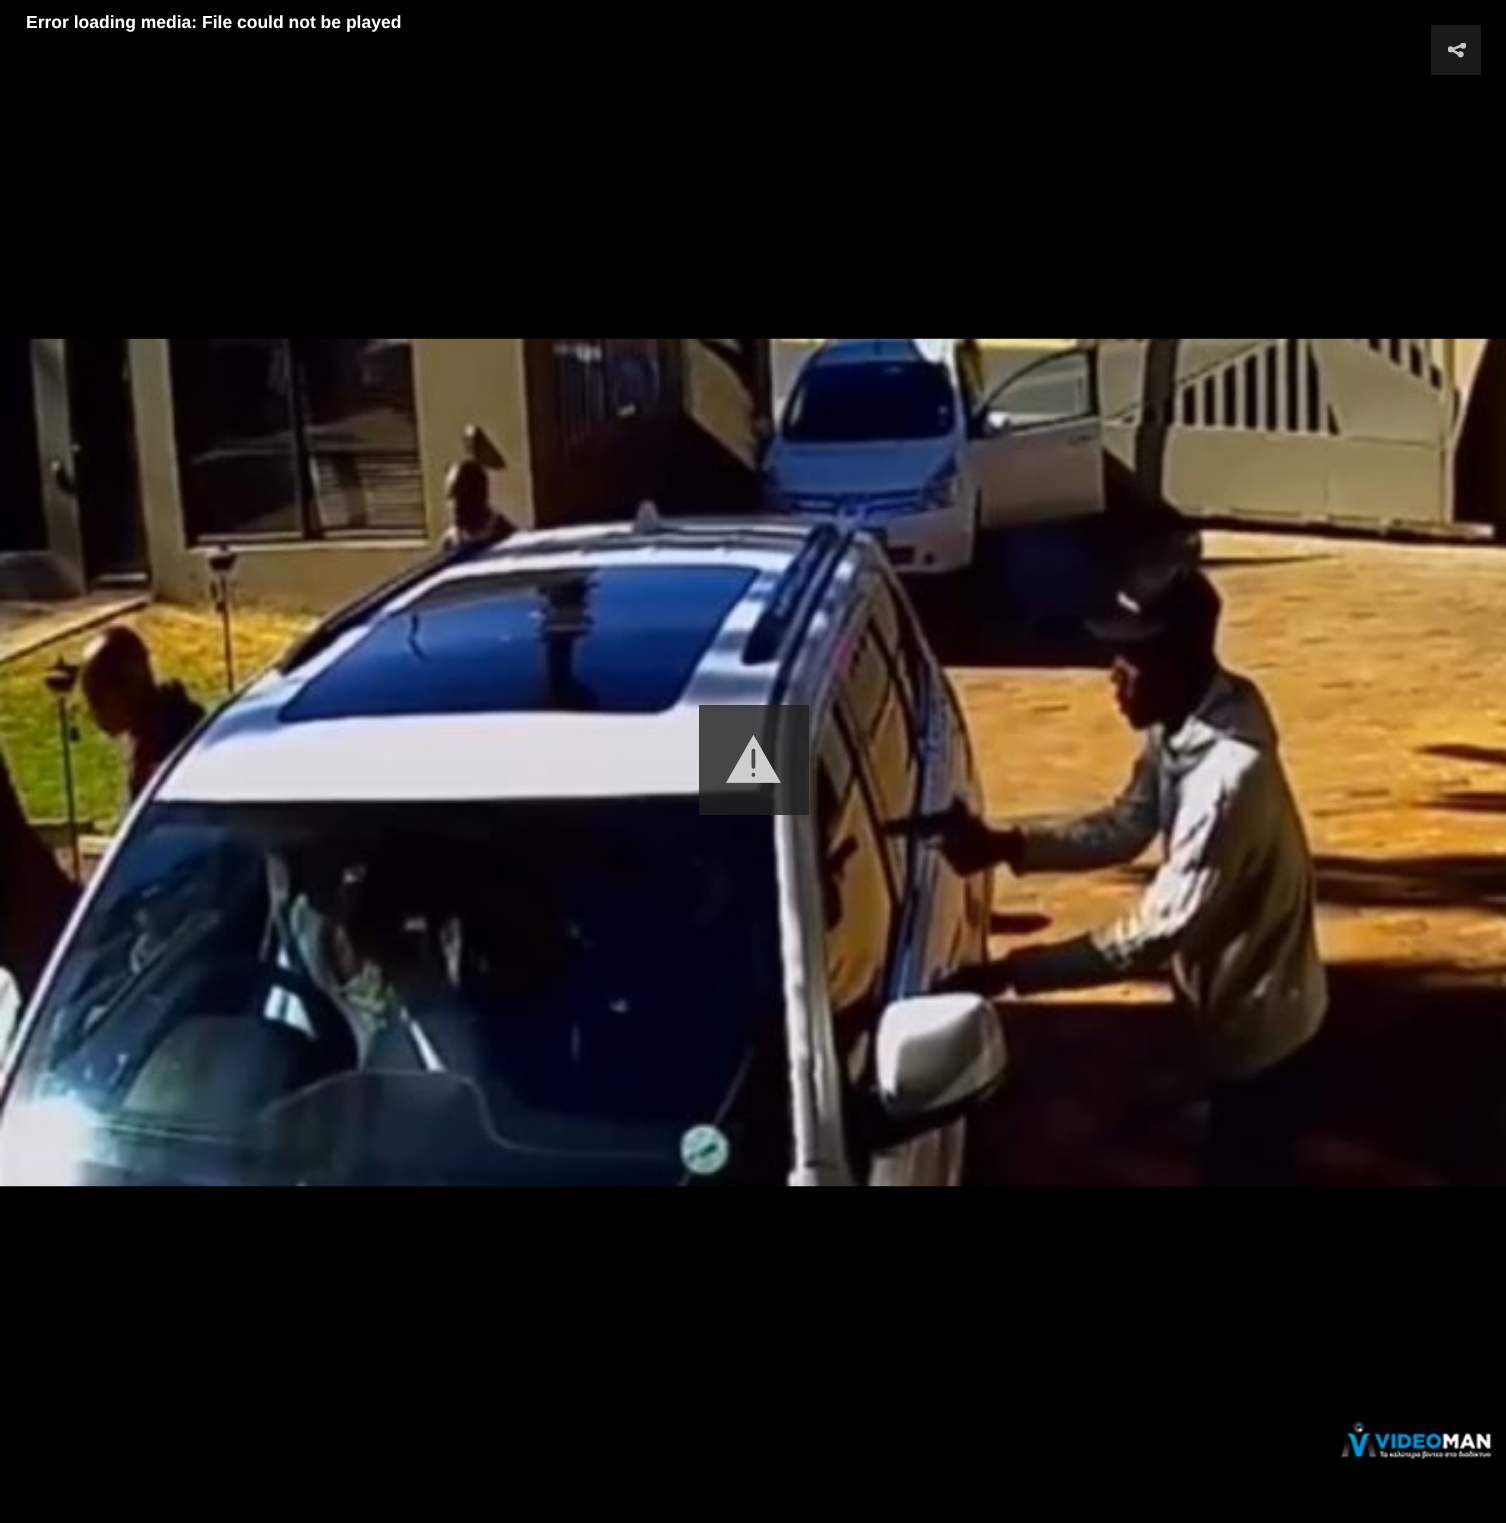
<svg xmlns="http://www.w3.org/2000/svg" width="1506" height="1523">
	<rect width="100%" height="100%" fill="#000000" />
	<text x="26" y="28" font-family="Liberation Sans" font-size="17.5" font-weight="700" fill="#FFFFFF">Error loading media: File could not be played</text>
	<image x="0" y="338" width="1506" height="849" href="assets/img4.png" />
	<rect x="699" y="705" width="110" height="110" fill="#212121" fill-opacity="0.8" />
	<image x="726" y="734" width="55" height="49" href="assets/img1.png" />
	<rect x="1431" y="25" width="50" height="50" fill="#1A1A1A" />
	<image x="1448" y="43" width="18" height="15" href="assets/img2.png" />
	<image x="1341" y="1421" width="151" height="38" href="assets/img3.png" />
</svg>
